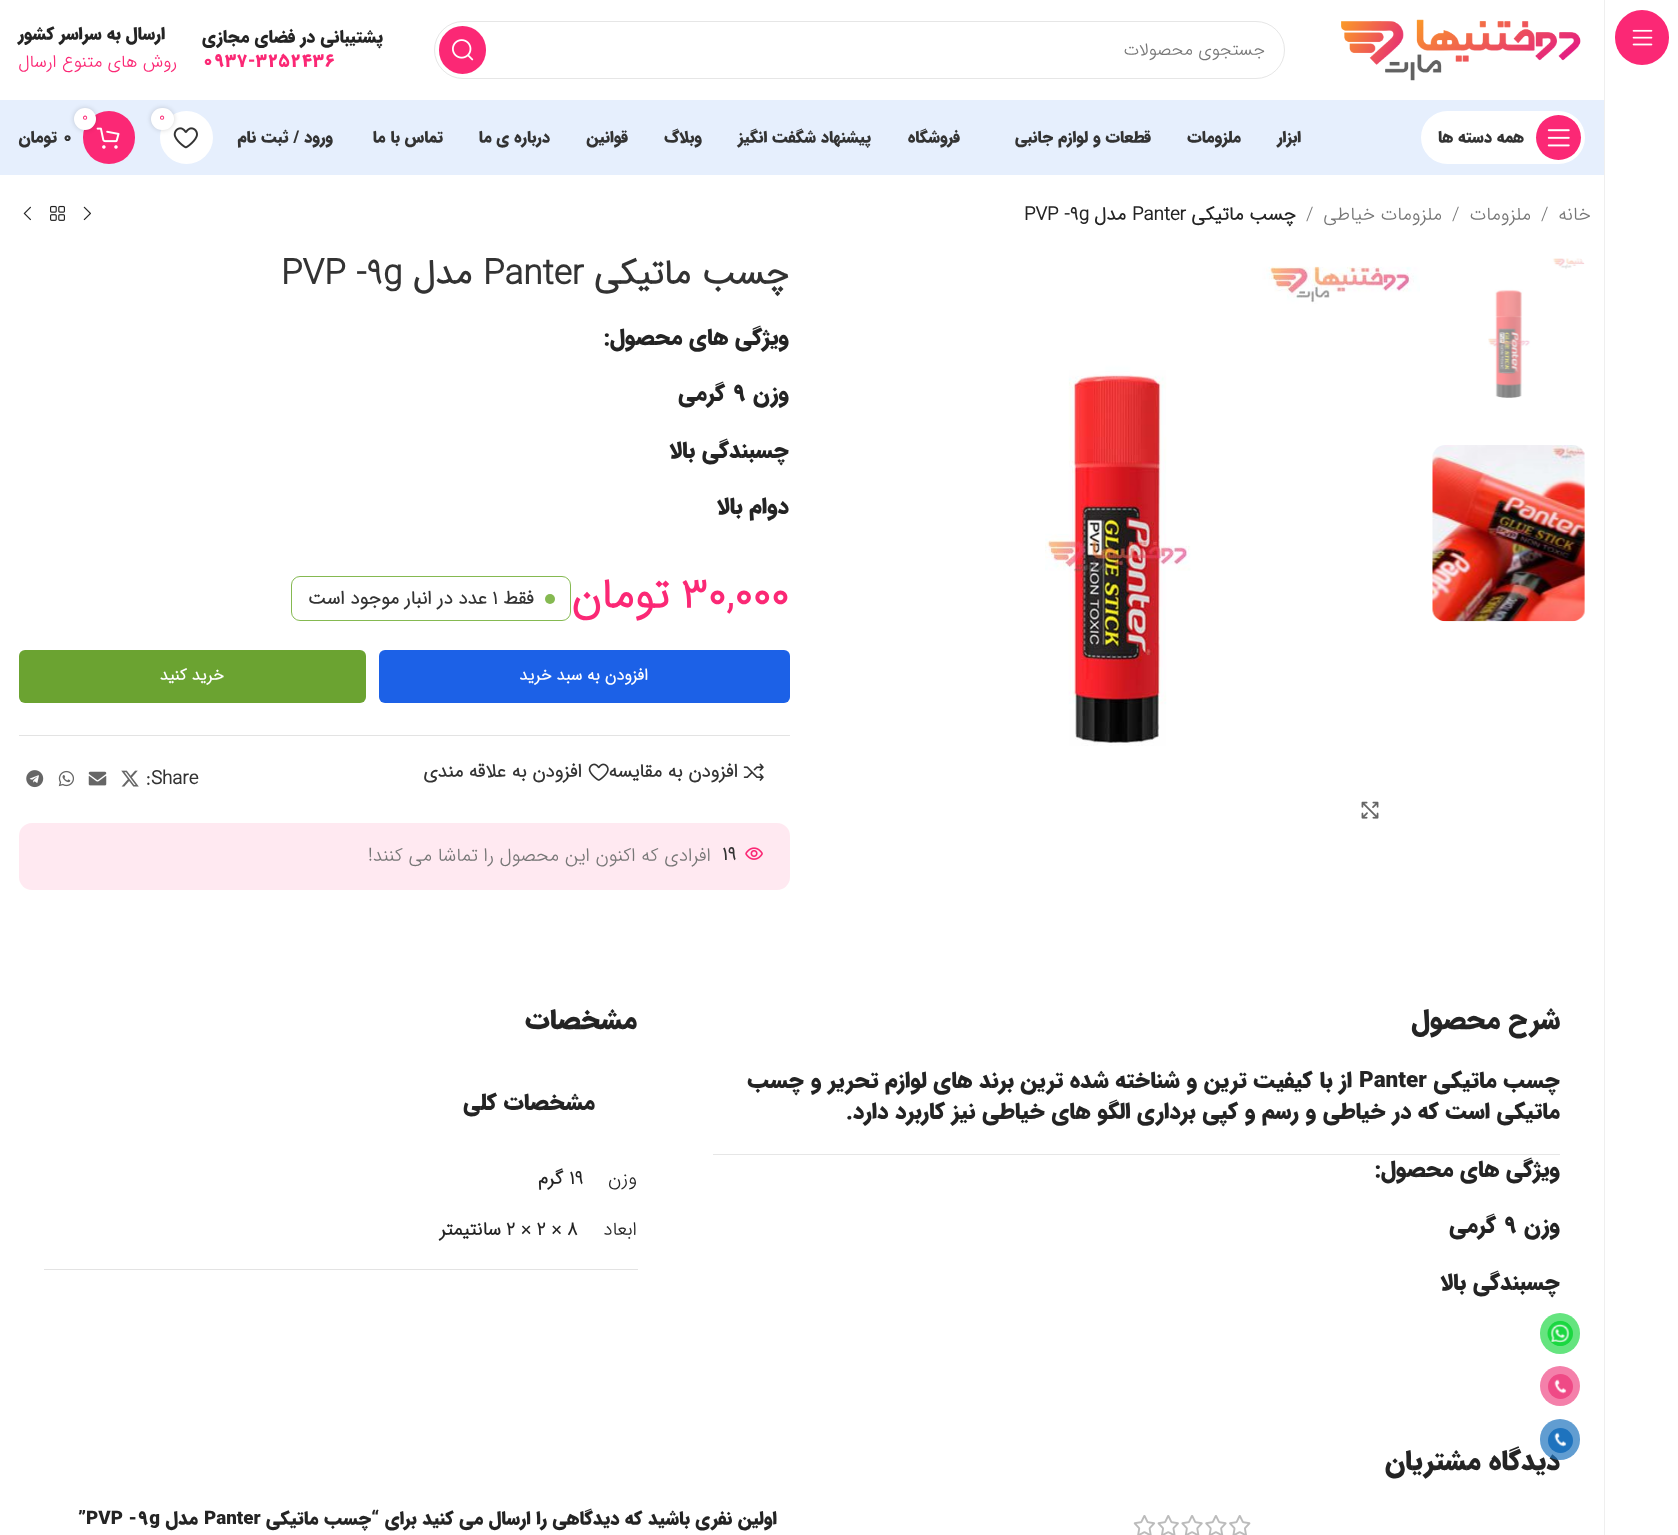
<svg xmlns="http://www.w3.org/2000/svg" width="1678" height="1535">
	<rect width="100%" height="100%" fill="#FFFFFF" />
	<rect x="1604" y="0" width="1" height="1535" fill="#EFEFEF" />
	<rect x="1615" y="10" width="54" height="55" rx="27" fill="#FB2875" />
	<image x="1632" y="29" width="21" height="17" href="assets/img1.png" />
	<image x="1341" y="19" width="240" height="62" href="assets/img2.png" />
	<rect x="434.5" y="21.5" width="850" height="57" rx="28.5" fill="none" stroke="#E6E6E6" />
	<text x="1265" y="55" font-family="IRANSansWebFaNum" font-size="17.5" font-weight="300" direction="rtl" fill="#767676">جستجوی محصولات</text>
	<rect x="439" y="26" width="47" height="48" rx="23.5" fill="#FB2875" />
	<image x="452" y="39" width="22" height="22" href="assets/img3.png" />
	<text x="383" y="42" font-family="IRANSansWebFaNum" font-size="17.5" font-weight="900" direction="rtl" fill="#242424">پشتیبانی در فضای مجازی</text>
	<text x="202" y="66" font-family="IRANSansWebFaNum" font-size="17.5" font-weight="900" fill="#FB2875">0937-3252436</text>
	<text x="165" y="39" font-family="IRANSansWebFaNum" font-size="17.5" font-weight="900" direction="rtl" fill="#242424">ارسال به سراسر کشور</text>
	<text x="177" y="67" font-family="IRANSansWebFaNum" font-size="17.5" font-weight="300" direction="rtl" fill="#FB2875">روش های متنوع ارسال</text>
	<rect x="0" y="100" width="1604" height="75" fill="#E6EFFD" />
	<rect x="1421" y="111" width="164" height="53" rx="26.5" fill="#FFFFFF" />
	<circle cx="1558.5" cy="137.5" r="22.5" fill="#FB2875" />
	<image x="1547" y="129" width="23" height="18" href="assets/img4.png" />
	<g font-family="IRANSansWebFaNum" font-size="16.25" font-weight="900" direction="rtl" fill="#333333">
		<text x="1524" y="142">همه دسته ها</text>
		<text x="1301" y="142">ابزار</text>
		<text x="1241" y="142">ملزومات</text>
		<text x="1151" y="142">قطعات و لوازم جانبی</text>
	</g>
	<circle cx="186.5" cy="137.5" r="26.5" fill="#FFFFFF" />
	<image x="173" y="127" width="25" height="22" href="assets/img5.png" />
	<rect x="151" y="108" width="23" height="22" rx="11" fill="#000000" fill-opacity="0.17" filter="blur(2.5px)" />
	<rect x="151" y="108" width="23" height="22" rx="11" fill="#FFFFFF" />
	<text x="159" y="121" font-family="IRANSansWebFaNum" font-size="14" font-weight="300" fill="#FB2875">0</text>
	<rect x="83" y="111" width="52" height="53" rx="26" fill="#FB2875" />
	<image x="96" y="127" width="24" height="22" href="assets/img6.png" />
	<rect x="74" y="108" width="22" height="22" rx="11" fill="#000000" fill-opacity="0.17" filter="blur(2.5px)" />
	<circle cx="85" cy="119" r="11" fill="#FFFFFF" />
	<text x="82" y="121" font-family="IRANSansWebFaNum" font-size="14" font-weight="300" fill="#FB2875">0</text>
	<text x="62" y="142" font-family="IRANSansWebFaNum" font-size="16.25" font-weight="900" fill="#333333">0</text>
	<g font-family="IRANSansWebFaNum" font-size="16.25" font-weight="900" direction="rtl" fill="#333333">
		<text x="57" y="142">تومان</text>
		<text x="960" y="142">فروشگاه</text>
		<text x="871" y="142">پیشنهاد شگفت انگیز</text>
		<text x="702" y="142">وبلاگ</text>
		<text x="628" y="142">قوانین</text>
		<text x="550" y="142">درباره ی ما</text>
		<text x="443" y="142">تماس با ما</text>
		<text x="333" y="142">ورود / ثبت نام</text>
	</g>
	<text x="1591" y="220" font-family="IRANSansWebFaNum" font-size="18.75" font-weight="300" direction="rtl" fill="#767676">خانه</text>
	<text x="1541" y="220" font-family="IRANSansWebFaNum" font-size="18.75" font-weight="300" fill="#767676">/</text>
	<text x="1531" y="220" font-family="IRANSansWebFaNum" font-size="18.75" font-weight="300" direction="rtl" fill="#767676">ملزومات</text>
	<text x="1452" y="220" font-family="IRANSansWebFaNum" font-size="18.75" font-weight="300" fill="#767676">/</text>
	<text x="1442" y="220" font-family="IRANSansWebFaNum" font-size="18.75" font-weight="300" direction="rtl" fill="#767676">ملزومات خیاطی</text>
	<text x="1306" y="220" font-family="IRANSansWebFaNum" font-size="18.75" font-weight="300" fill="#767676">/</text>
	<text x="1296" y="220" font-family="IRANSansWebFaNum" font-size="18.75" font-weight="700" direction="rtl" fill="#242424">چسب ماتیکی</text>
	<text x="1132" y="220" font-family="IRANSansWebFaNum" font-size="18.75" font-weight="700" fill="#242424">Panter</text>
	<text x="1126" y="220" font-family="IRANSansWebFaNum" font-size="18.75" font-weight="700" direction="rtl" fill="#242424">مدل</text>
	<text x="1024" y="220" font-family="IRANSansWebFaNum" font-size="18.75" font-weight="700" fill="#242424">PVP -9g</text>
	<image x="83" y="206" width="8" height="15" href="assets/img7.png" />
	<image x="50" y="205" width="15" height="16" href="assets/img8.png" />
	<image x="23" y="206" width="8" height="15" href="assets/img9.png" />
	<image x="1488" y="258" width="97" height="140" href="assets/img10.png" />
	<image x="1432" y="445" width="153" height="177" href="assets/img11.png" />
	<image x="1045" y="266" width="375" height="480" href="assets/img12.png" />
	<image x="1361" y="801" width="18" height="18" href="assets/img13.png" />
	<text x="789" y="284" font-family="IRANSansWebFaNum" font-size="35" font-weight="700" direction="rtl" fill="#333333">چسب ماتیکی</text>
	<text x="483" y="284" font-family="IRANSansWebFaNum" font-size="35" font-weight="700" fill="#333333">Panter</text>
	<text x="472" y="284" font-family="IRANSansWebFaNum" font-size="35" font-weight="700" direction="rtl" fill="#333333">مدل</text>
	<text x="281" y="284" font-family="IRANSansWebFaNum" font-size="35" font-weight="700" fill="#333333">PVP -9g</text>
	<g font-family="IRANSansWebFaNum" font-size="22.5" font-weight="900" direction="rtl" fill="#242424">
		<text x="789" y="344">ویژگی های محصول:</text>
		<text x="789" y="400">وزن</text>
	</g>
	<text x="732" y="400" font-family="IRANSansWebFaNum" font-size="22.5" font-weight="900" fill="#242424">9</text>
	<g font-family="IRANSansWebFaNum" font-size="22.5" font-weight="900" direction="rtl" fill="#242424">
		<text x="725" y="400">گرمی</text>
		<text x="789" y="457">چسبندگی بالا</text>
		<text x="789" y="513">دوام بالا</text>
	</g>
	<text x="681" y="608" font-family="IRANSansWebFaNum" font-size="42.5" font-weight="700" fill="#FB2875">30,000</text>
	<text x="669" y="608" font-family="IRANSansWebFaNum" font-size="42.5" font-weight="700" direction="rtl" fill="#FB2875">تومان</text>
	<rect x="291.5" y="576.5" width="279" height="44" rx="8.5" fill="none" stroke="#85B951" />
	<circle cx="550" cy="599" r="5" fill="#85B951" />
	<text x="534" y="604" font-family="IRANSansWebFaNum" font-size="18.75" font-weight="700" direction="rtl" fill="#333333">فقط</text>
	<text x="492" y="604" font-family="IRANSansWebFaNum" font-size="18.75" font-weight="700" fill="#333333">1</text>
	<text x="487" y="604" font-family="IRANSansWebFaNum" font-size="18.75" font-weight="700" direction="rtl" fill="#333333">عدد در انبار موجود است</text>
	<rect x="379" y="650" width="411" height="53" rx="6" fill="#1C61E7" />
	<text x="648" y="680" font-family="IRANSansWebFaNum" font-size="16.25" font-weight="700" direction="rtl" fill="#FFFFFF">افزودن به سبد خرید</text>
	<rect x="19" y="650" width="347" height="53" rx="6" fill="#6BA331" />
	<text x="224" y="680" font-family="IRANSansWebFaNum" font-size="16.25" font-weight="700" direction="rtl" fill="#FFFFFF">خرید کنید</text>
	<rect x="19" y="735" width="771" height="1" fill="#E3E3E3" />
	<image x="743" y="763" width="21" height="18" href="assets/img14.png" />
	<text x="738" y="777" font-family="IRANSansWebFaNum" font-size="18.75" font-weight="700" direction="rtl" fill="#333333">افزودن به مقایسه</text>
	<image x="588" y="763" width="21" height="18" href="assets/img15.png" />
	<text x="582" y="777" font-family="IRANSansWebFaNum" font-size="18.75" font-weight="700" direction="rtl" fill="#333333">افزودن به علاقه مندی</text>
	<text x="146" y="784" font-family="IRANSansWebFaNum" font-size="18.75" font-weight="700" fill="#333333">:Share</text>
	<image x="121" y="770" width="18" height="17" href="assets/img16.png" />
	<image x="88" y="771" width="19" height="15" href="assets/img17.png" />
	<image x="58" y="770" width="16" height="17" href="assets/img18.png" />
	<image x="26" y="770" width="18" height="18" href="assets/img19.png" />
	<image x="745" y="847" width="18" height="13" href="assets/img20.png" />
	<rect x="19" y="823" width="771" height="67" rx="13" fill="#FB2875" fill-opacity="0.1" />
	<text x="722" y="860" font-family="IRANSansWebFaNum" font-size="18.75" font-weight="700" fill="#333333">19</text>
	<text x="711" y="861" font-family="IRANSansWebFaNum" font-size="18.75" font-weight="300" direction="rtl" fill="#767676">افرادی که اکنون این محصول را تماشا می کنند!</text>
	<text x="1560" y="1028" font-family="IRANSansWebFaNum" font-size="27.5" font-weight="900" direction="rtl" fill="#242424">شرح محصول</text>
	<text x="1560" y="1087" font-family="IRANSansWebFaNum" font-size="22.5" font-weight="900" direction="rtl" fill="#242424">چسب ماتیکی</text>
	<text x="1359" y="1087" font-family="IRANSansWebFaNum" font-size="22.5" font-weight="900" fill="#242424">Panter</text>
	<g font-family="IRANSansWebFaNum" font-size="22.5" font-weight="900" direction="rtl" fill="#242424">
		<text x="1352" y="1087">از با کیفیت ترین و شناخته شده ترین برند های لوازم تحریر و</text>
		<text x="804" y="1087">چسب</text>
		<text x="1560" y="1118">ماتیکی</text>
		<text x="1490" y="1118">است که در خیاطی و رسم و کپی برداری الگو های خیاطی نیز کاربرد دارد.</text>
	</g>
	<rect x="713" y="1154" width="847" height="1" fill="#E6E6E6" />
	<g font-family="IRANSansWebFaNum" font-size="22.5" font-weight="900" direction="rtl" fill="#242424">
		<text x="1560" y="1176">ویژگی های محصول:</text>
		<text x="1560" y="1232">وزن</text>
	</g>
	<text x="1503" y="1232" font-family="IRANSansWebFaNum" font-size="22.5" font-weight="900" fill="#242424">9</text>
	<g font-family="IRANSansWebFaNum" font-size="22.5" font-weight="900" direction="rtl" fill="#242424">
		<text x="1496" y="1232">گرمی</text>
		<text x="1560" y="1289">چسبندگی بالا</text>
	</g>
	<text x="637" y="1028" font-family="IRANSansWebFaNum" font-size="27.5" font-weight="900" direction="rtl" fill="#242424">مشخصات</text>
	<rect x="44" y="1269" width="594" height="1" fill="#E3E3E3" />
	<text x="595" y="1109" font-family="IRANSansWebFaNum" font-size="22.5" font-weight="900" direction="rtl" fill="#242424">مشخصات کلی</text>
	<text x="637" y="1184" font-family="IRANSansWebFaNum" font-size="18.75" font-weight="300" direction="rtl" fill="#242424">وزن</text>
	<text x="569" y="1184" font-family="IRANSansWebFaNum" font-size="18.75" font-weight="700" fill="#242424">19</text>
	<text x="563" y="1184" font-family="IRANSansWebFaNum" font-size="18.75" font-weight="700" direction="rtl" fill="#242424">گرم</text>
	<text x="637" y="1235" font-family="IRANSansWebFaNum" font-size="18.75" font-weight="300" direction="rtl" fill="#242424">ابعاد</text>
	<text x="506" y="1235" font-family="IRANSansWebFaNum" font-size="18.75" font-weight="700" fill="#242424">2 × 2 × 8</text>
	<text x="501" y="1235" font-family="IRANSansWebFaNum" font-size="18.75" font-weight="700" direction="rtl" fill="#242424">سانتیمتر</text>
	<text x="1560" y="1469" font-family="IRANSansWebFaNum" font-size="27.5" font-weight="900" direction="rtl" fill="#242424">دیدگاه مشتریان</text>
	<image x="1133" y="1515" width="118" height="20" href="assets/img21.png" />
	<text x="777" y="1524" font-family="IRANSansWebFaNum" font-size="18.75" font-weight="900" direction="rtl" fill="#242424">اولین نفری باشید که دیدگاهی را ارسال می کنید برای “چسب ماتیکی</text>
	<text x="204" y="1524" font-family="IRANSansWebFaNum" font-size="18.75" font-weight="900" fill="#242424">Panter</text>
	<text x="198" y="1524" font-family="IRANSansWebFaNum" font-size="18.75" font-weight="900" direction="rtl" fill="#242424">مدل</text>
	<text x="78" y="1524" font-family="IRANSansWebFaNum" font-size="18.75" font-weight="900" fill="#242424">”PVP -9g</text>
	<rect x="1540" y="1313" width="40" height="41" rx="20" fill="#23D948" fill-opacity="0.7" />
	<circle cx="1560.5" cy="1333.5" r="12.5" fill="#1CD741" />
	<image x="1547" y="1320" width="24" height="26" href="assets/img22.png" />
	<circle cx="1560" cy="1386" r="20" fill="#F480AA" />
	<circle cx="1560.5" cy="1386.5" r="12.5" fill="#EF4A86" />
	<image x="1554" y="1379" width="13" height="15" href="assets/img23.png" />
	<rect x="1540" y="1419" width="40" height="41" rx="20" fill="#1E73BE" fill-opacity="0.7" />
	<circle cx="1560.5" cy="1440.5" r="12.5" fill="#1E73BE" />
	<image x="1554" y="1432" width="13" height="15" href="assets/img24.png" />
</svg>
